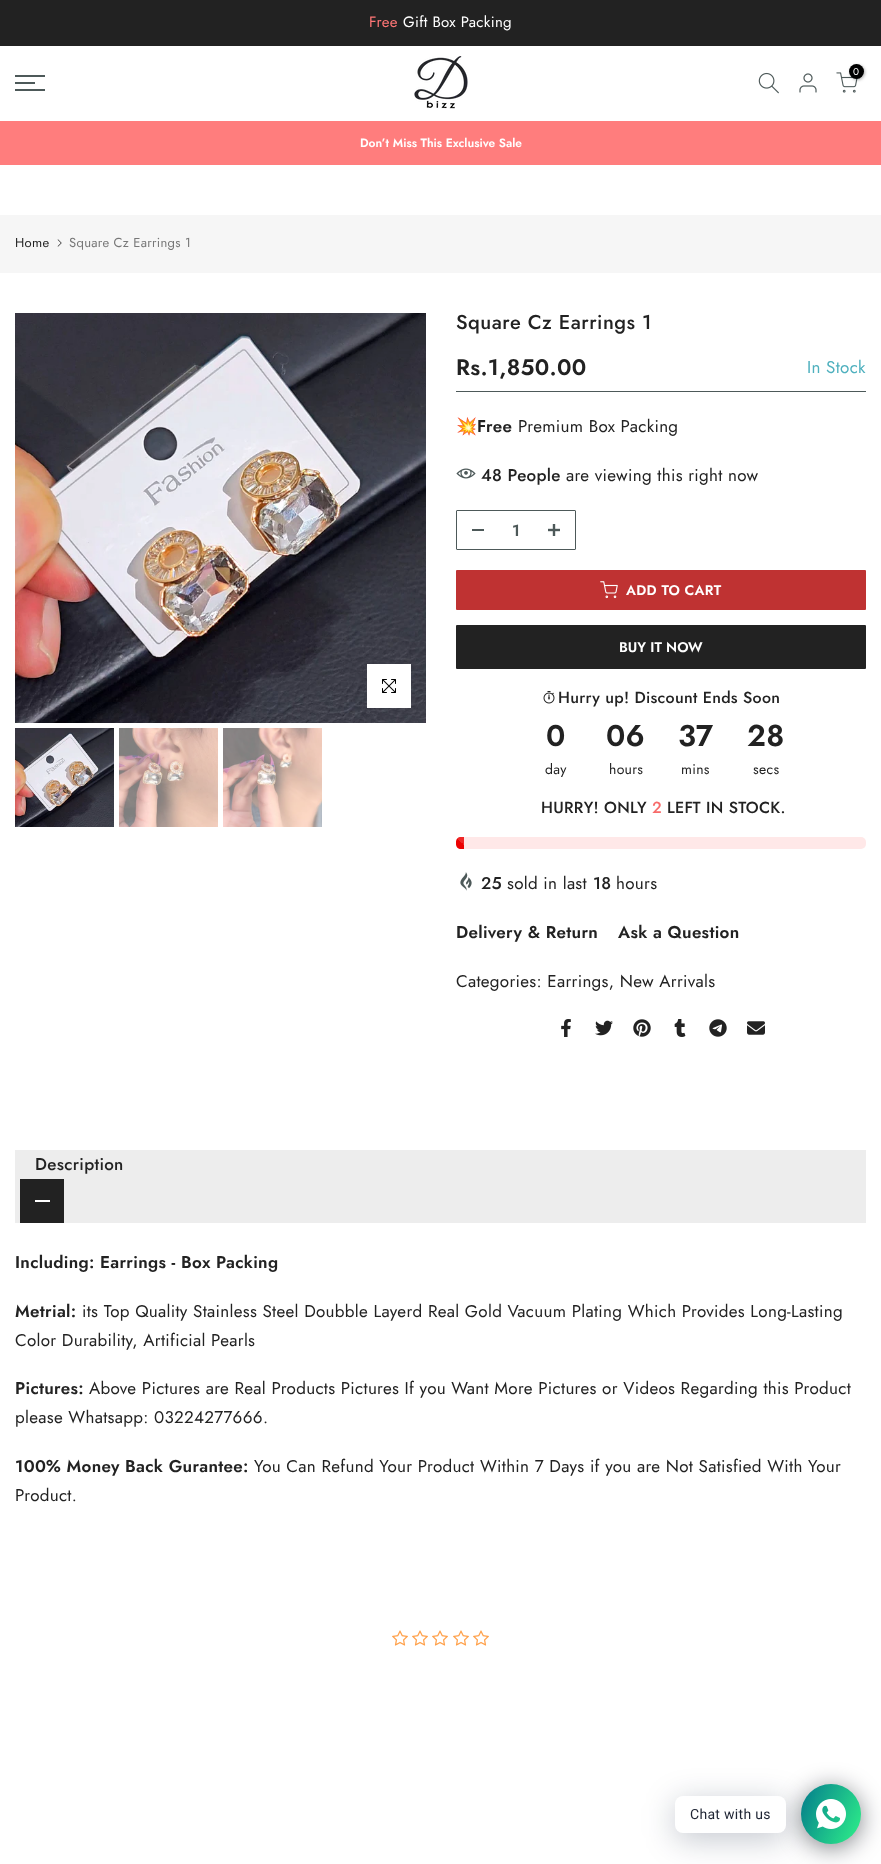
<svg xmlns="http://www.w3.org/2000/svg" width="881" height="1864">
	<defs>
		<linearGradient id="g1" gradientUnits="userSpaceOnUse" x1="456" y1="877" x2="496" y2="837"><stop offset="0.25" stop-color="#FFFFFF" stop-opacity="0.15" /><stop offset="0.25" stop-color="#FFFFFF" stop-opacity="0" /><stop offset="0.5" stop-color="#FFFFFF" stop-opacity="0" /><stop offset="0.5" stop-color="#FFFFFF" stop-opacity="0.15" /><stop offset="0.75" stop-color="#FFFFFF" stop-opacity="0.15" /><stop offset="0.75" stop-color="#FFFFFF" stop-opacity="0" /><stop offset="1" stop-color="#000000" stop-opacity="0" /></linearGradient>
		<linearGradient id="g2" gradientUnits="userSpaceOnUse" x1="795" y1="1797" x2="867" y2="1831"><stop offset="0" stop-color="#047C8D" /><stop offset="1" stop-color="#2FF289" /></linearGradient>
	</defs>
	<rect width="100%" height="100%" fill="#FFFFFF" />
	<rect x="0" y="0" width="881" height="46" fill="#222222" />
	<text x="369" y="27" font-family="Jost" font-size="15" letter-spacing="0.3" fill="#FF7676">Free</text>
	<text x="403" y="27" font-family="Jost" font-size="15" letter-spacing="0.3" fill="#FFFFFF">Gift Box Packing</text>
	<image x="414" y="56" width="54" height="53" href="assets/img1.png" />
	<image x="758" y="72" width="21" height="22" href="assets/img2.png" />
	<image x="799" y="73" width="18" height="20" href="assets/img3.png" />
	<image x="836" y="72" width="22" height="21" href="assets/img4.png" />
	<rect x="850" y="65" width="15" height="15" rx="7.5" fill="#000000" fill-opacity="0.3" filter="blur(1.5px)" />
	<circle cx="856.5" cy="71.5" r="7.5" fill="#000000" />
	<text x="853" y="75" font-family="Jost" font-size="10" fill="#FFFFFF">0</text>
	<rect x="15" y="75" width="30" height="2" fill="#4D5959" />
	<rect x="15" y="82" width="20" height="2" fill="#4D5959" />
	<rect x="15" y="89" width="30" height="2" fill="#4D5959" />
	<rect x="0" y="121" width="881" height="44" fill="#FF7D7D" />
	<text x="360" y="147" font-family="Jost" font-size="12" font-weight="600" fill="#FFFFFF">Don’t Miss This Exclusive Sale</text>
	<rect x="0" y="215" width="881" height="58" fill="#F6F6F6" />
	<text x="15" y="247" font-family="Jost" font-size="13" letter-spacing="0.3" fill="#222222">Home</text>
	<image x="57" y="239" width="5" height="8" href="assets/img5.png" />
	<text x="69" y="247" font-family="Jost" font-size="13" letter-spacing="0.3" fill="#777777">Square Cz Earrings 1</text>
	<image x="15" y="313" width="411" height="410" href="assets/img6.png" />
	<rect x="367" y="664" width="44" height="44" fill="#FFFFFF" />
	<image x="382" y="679" width="14" height="14" href="assets/img7.png" />
	<image x="15" y="728" width="99" height="99" href="assets/img8.png" />
	<image x="119" y="728" width="99" height="99" href="assets/img9.png" />
	<image x="223" y="728" width="99" height="99" href="assets/img10.png" />
	<text x="456" y="329" font-family="Jost" font-size="20" font-weight="500" letter-spacing="0.5" fill="#222222">Square Cz Earrings 1</text>
	<rect x="456" y="391" width="410" height="1" fill="#4D5959" />
	<text x="456" y="375" font-family="Jost" font-size="22.5" font-weight="600" letter-spacing="0.3" fill="#222222">Rs.1,850.00</text>
	<text x="807" y="373" font-family="Jost" font-size="17" letter-spacing="0.3" fill="#4EB0BE">In Stock</text>
	<text x="456" y="432" font-family="Noto Color Emoji" font-size="17" font-weight="700" letter-spacing="0.3" fill="#222222">💥</text>
	<text x="477" y="432" font-family="Jost" font-size="17" font-weight="600" letter-spacing="0.3" fill="#222222">Free</text>
	<text x="518" y="432" font-family="Jost" font-size="17" letter-spacing="0.3" fill="#222222">Premium Box Packing</text>
	<image x="456" y="468" width="20" height="11" href="assets/img11.png" />
	<text x="481" y="481" font-family="Jost" font-size="17" font-weight="500" letter-spacing="0.3" fill="#222222">48 People</text>
	<text x="566" y="481" font-family="Jost" font-size="17" letter-spacing="0.3" fill="#222222">are viewing this right now</text>
	<rect x="456.5" y="510.5" width="119" height="39" rx="0.5" fill="none" stroke="#4D5959" />
	<rect x="472" y="529" width="12" height="2" fill="#4D5959" />
	<text x="512" y="536" font-family="Jost" font-size="16" font-weight="600" fill="#4D5959">1</text>
	<image x="548" y="524" width="12" height="12" href="assets/img12.png" />
	<rect x="456" y="570" width="410" height="40" rx="1" fill="#BF3232" />
	<image x="600" y="581" width="18" height="18" href="assets/img13.png" />
	<text x="626" y="595" font-family="Jost" font-size="14" font-weight="600" letter-spacing="0.3" fill="#FFFFFF">ADD TO CART</text>
	<rect x="456" y="625" width="410" height="44" rx="1" fill="#222222" />
	<text x="619" y="652" font-family="Jost" font-size="14" font-weight="600" fill="#FFFFFF">BUY IT NOW</text>
	<image x="543" y="691" width="12" height="13" href="assets/img14.png" />
	<text x="558" y="703" font-family="Jost" font-size="16" font-weight="500" letter-spacing="0.3" fill="#222222">Hurry up! Discount Ends Soon</text>
	<text x="546" y="746" font-family="Jost" font-size="30" font-weight="600" letter-spacing="0.3" fill="#222222">0</text>
	<text x="545" y="774" font-family="Jost" font-size="14" letter-spacing="0.3" fill="#222222">day</text>
	<text x="606" y="746" font-family="Jost" font-size="30" font-weight="600" letter-spacing="0.3" fill="#222222">06</text>
	<text x="609" y="774" font-family="Jost" font-size="14" letter-spacing="0.3" fill="#222222">hours</text>
	<text x="678" y="746" font-family="Jost" font-size="30" font-weight="600" letter-spacing="0.3" fill="#222222">37</text>
	<text x="681" y="774" font-family="Jost" font-size="14" letter-spacing="0.3" fill="#222222">mins</text>
	<text x="747" y="746" font-family="Jost" font-size="30" font-weight="600" letter-spacing="0.3" fill="#222222">28</text>
	<text x="753" y="774" font-family="Jost" font-size="14" letter-spacing="0.3" fill="#222222">secs</text>
	<text x="541" y="813" font-family="Jost" font-size="16" font-weight="500" letter-spacing="0.3" fill="#222222">HURRY! ONLY</text>
	<text x="652" y="813" font-family="Jost" font-size="16" font-weight="500" letter-spacing="0.3" fill="#F76B6A">2</text>
	<text x="667" y="813" font-family="Jost" font-size="16" font-weight="500" letter-spacing="0.3" fill="#222222">LEFT IN STOCK.</text>
	<rect x="456" y="837" width="410" height="12" rx="5" fill="#FFE8E8" />
	<path d="M461 837H464V849H461C458 849 456 847 456 844V842C456 839 458 837 461 837Z" fill="#EC0101" />
	<path d="M461 837H464V849H461C458 849 456 847 456 844V842C456 839 458 837 461 837Z" fill="url(#g1)" />
	<image x="460" y="872" width="12" height="19" href="assets/img15.png" />
	<text x="481" y="889" font-family="Jost" font-size="17" font-weight="500" letter-spacing="0.3" fill="#222222">25</text>
	<text x="507" y="889" font-family="Jost" font-size="17" letter-spacing="0.3" fill="#222222">sold in last</text>
	<text x="593" y="889" font-family="Jost" font-size="17" font-weight="500" letter-spacing="0.3" fill="#222222">18</text>
	<text x="616" y="889" font-family="Jost" font-size="17" letter-spacing="0.3" fill="#222222">hours</text>
	<g font-family="Jost" font-size="17" font-weight="600" letter-spacing="0.3" fill="#222222">
		<text x="456" y="938">Delivery &amp; Return</text>
		<text x="618" y="938">Ask a Question</text>
	</g>
	<text x="456" y="987" font-family="Jost" font-size="17" letter-spacing="0.3" fill="#222222">Categories: Earrings, New Arrivals</text>
	<image x="561" y="1019" width="10" height="18" href="assets/img16.png" />
	<image x="595" y="1020" width="18" height="16" href="assets/img17.png" />
	<image x="633" y="1019" width="18" height="18" href="assets/img18.png" />
	<image x="674" y="1019" width="12" height="18" href="assets/img19.png" />
	<image x="709" y="1019" width="18" height="18" href="assets/img20.png" />
	<image x="747" y="1021" width="18" height="14" href="assets/img21.png" />
	<rect x="15" y="1150" width="851" height="73" fill="#EDEDED" />
	<text x="35" y="1170" font-family="Jost" font-size="17" font-weight="500" letter-spacing="0.3" fill="#222222">Description</text>
	<rect x="20" y="1179" width="44" height="44" fill="#222222" />
	<rect x="35" y="1200" width="15" height="2" fill="#FFFFFF" />
	<g font-family="Jost" font-size="17" font-weight="600" letter-spacing="0.3" fill="#222222">
		<text x="15" y="1268">Including: Earrings - Box Packing</text>
		<text x="15" y="1317">Metrial:</text>
	</g>
	<g font-family="Jost" font-size="17" letter-spacing="0.3" fill="#222222">
		<text x="82" y="1317">its Top Quality Stainless Steel Doubble Layerd Real Gold Vacuum Plating Which Provides Long-Lasting</text>
		<text x="15" y="1346">Color Durability, Artificial Pearls</text>
	</g>
	<text x="15" y="1394" font-family="Jost" font-size="17" font-weight="600" letter-spacing="0.3" fill="#222222">Pictures:</text>
	<g font-family="Jost" font-size="17" letter-spacing="0.3" fill="#222222">
		<text x="89" y="1394">Above Pictures are Real Products Pictures If you Want More Pictures or Videos Regarding this Product</text>
		<text x="15" y="1423">please Whatsapp: 03224277666.</text>
	</g>
	<text x="15" y="1472" font-family="Jost" font-size="17" font-weight="600" letter-spacing="0.3" fill="#222222">100% Money Back Gurantee:</text>
	<g font-family="Jost" font-size="17" letter-spacing="0.3" fill="#222222">
		<text x="254" y="1472">You Can Refund Your Product Within 7 Days if you are Not Satisfied With Your</text>
		<text x="15" y="1501">Product.</text>
	</g>
	<image x="392" y="1630" width="16" height="16" href="assets/img22.png" />
	<image x="412" y="1630" width="16" height="16" href="assets/img22.png" />
	<image x="432" y="1630" width="16" height="16" href="assets/img22.png" />
	<image x="453" y="1630" width="16" height="16" href="assets/img22.png" />
	<image x="473" y="1630" width="16" height="16" href="assets/img22.png" />
	<rect x="801" y="1788" width="60" height="60" rx="30" fill="#020610" fill-opacity="0.5" filter="blur(12px)" />
	<circle cx="831" cy="1814" r="30" fill="url(#g2)" />
	<rect x="675" y="1802" width="111" height="37" rx="8" fill="#00122E" fill-opacity="0.24" filter="blur(16px)" />
	<rect x="675" y="1796" width="111" height="37" rx="8" fill="#FFFFFF" />
	<text x="690" y="1819" font-family="Roboto" font-size="14" letter-spacing="0.3" fill="#1E2433">Chat with us</text>
	<image x="816" y="1799" width="30" height="30" href="assets/img23.png" />
</svg>
